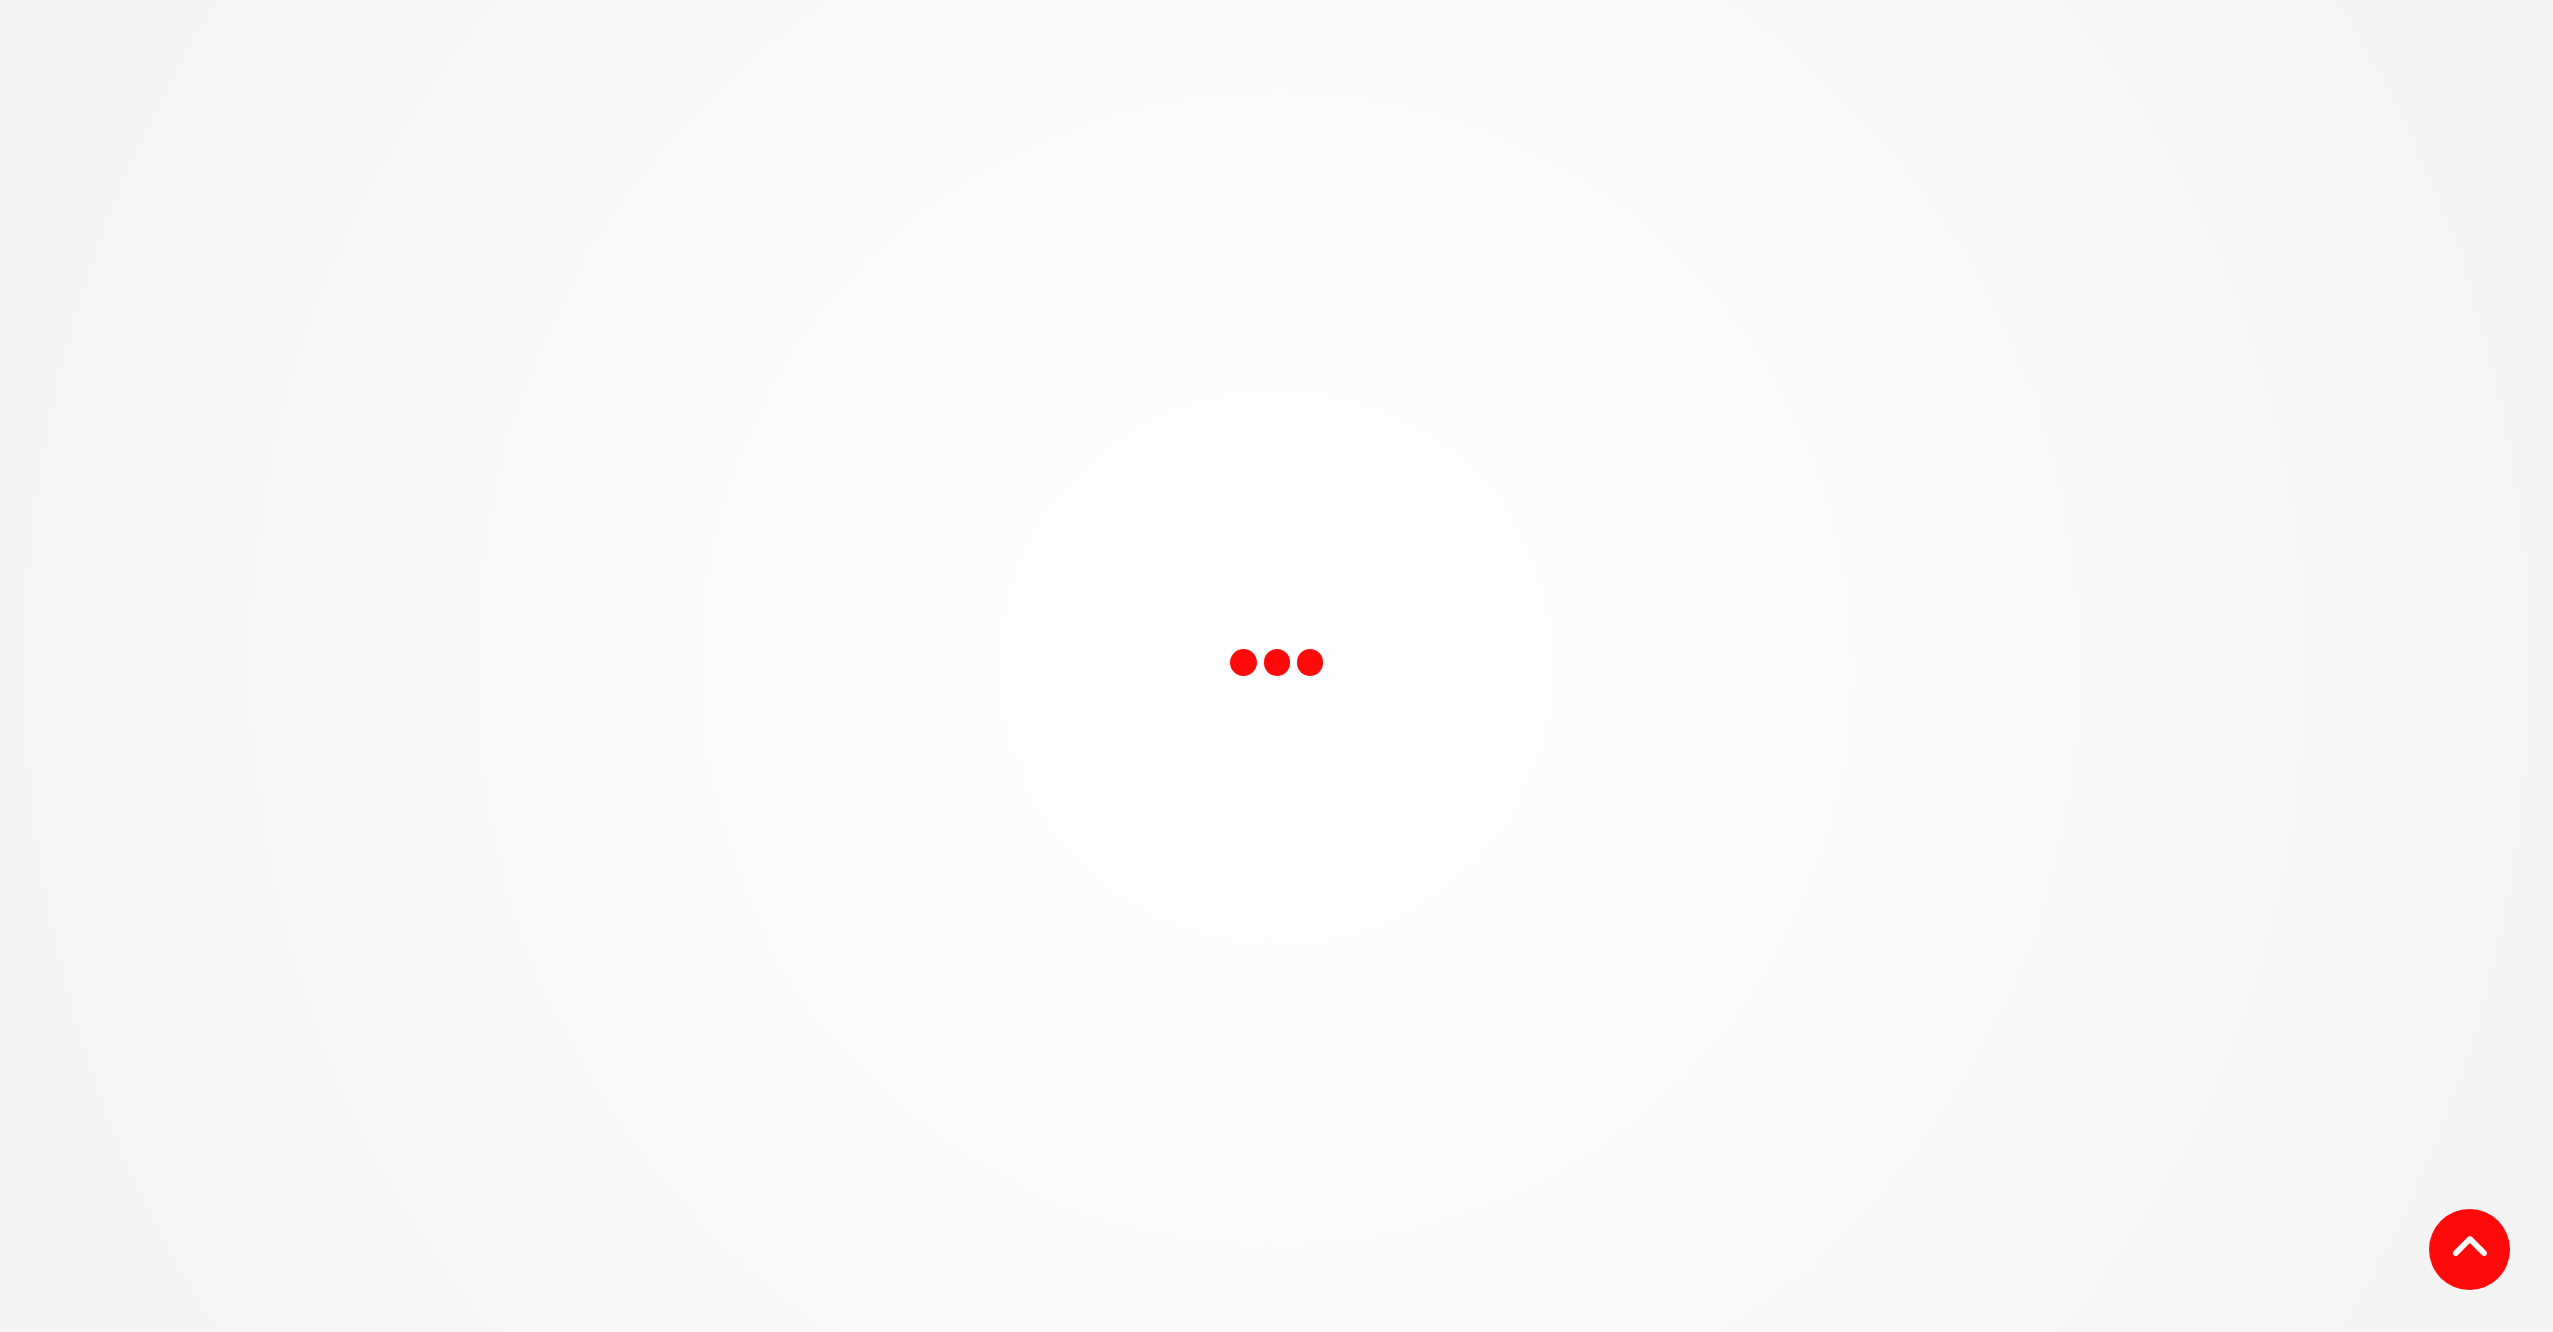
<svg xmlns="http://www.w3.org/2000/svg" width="2553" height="1332">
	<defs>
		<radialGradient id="g1" gradientUnits="userSpaceOnUse" cx="1277" cy="667" r="1440"><stop offset="0" stop-color="#FFFFFF" /><stop offset="1" stop-color="#F3F3F3" /></radialGradient>
	</defs>
	<rect width="100%" height="100%" fill="#FFFFFF" />
	<rect x="0" y="0" width="2553" height="1332" fill="url(#g1)" />
	<circle cx="1243.5" cy="662.5" r="13.5" fill="#FF0A0A" />
	<rect x="1264" y="649" width="26" height="27" rx="13" fill="#FF0A0A" />
	<rect x="1297" y="649" width="26" height="27" rx="13" fill="#FF0A0A" />
	<circle cx="2469.5" cy="1249.5" r="40.5" fill="#FF0A0A" />
	<image x="2452" y="1236" width="35" height="20" href="assets/img1.png" />
</svg>
